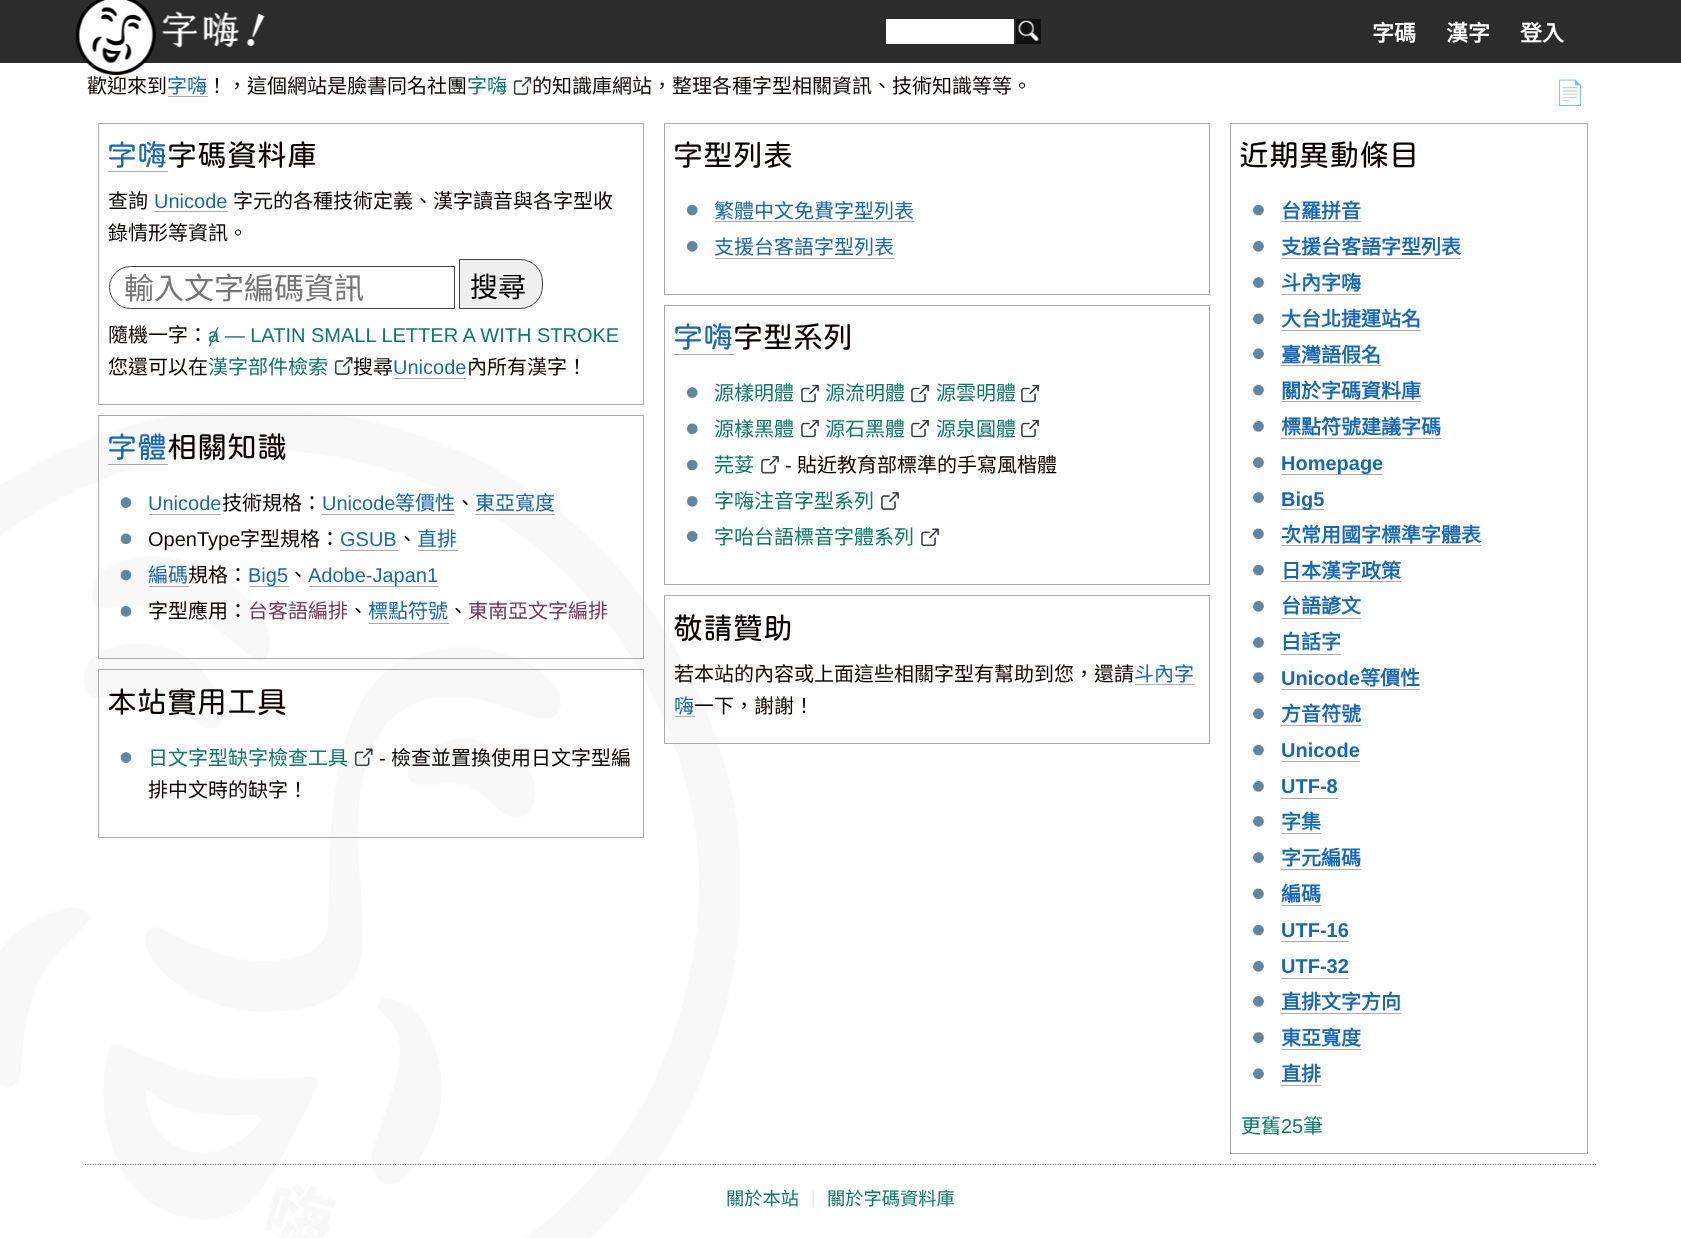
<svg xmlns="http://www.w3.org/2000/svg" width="1681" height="1238">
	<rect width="100%" height="100%" fill="#FFFFFF" />
	<image x="0" y="409" width="740" height="829" href="assets/img1.png" />
	<rect x="0" y="0" width="1681" height="63" fill="#2C2C2C" />
	<image x="75" y="0" width="190" height="75" href="assets/img2.png" />
	<rect x="886" y="19" width="128" height="25" fill="#FFFFFF" />
	<rect x="1016" y="19" width="25" height="25" fill="#111111" />
	<image x="1018" y="20" width="21" height="22" href="assets/img3.png" />
	<g font-family="Noto Sans CJK TC" font-size="22" font-weight="700" fill="#FFFFFF">
		<text x="1372" y="41">字碼</text>
		<text x="1446" y="41">漢字</text>
		<text x="1520" y="41">登入</text>
	</g>
	<text x="87" y="93" font-family="Noto Sans CJK TC" font-size="20" fill="#0C0301">歡迎來到</text>
	<text x="167" y="93" font-family="Noto Sans CJK TC" font-size="20" fill="#1768B9">字嗨</text>
	<rect x="168" y="96" width="40" height="1" fill="#AAAAAA" />
	<text x="207" y="93" font-family="Noto Sans CJK TC" font-size="20" fill="#0C0301">！，這個網站是臉書同名社團</text>
	<text x="467" y="93" font-family="Noto Sans CJK TC" font-size="20" fill="#0C7A68">字嗨</text>
	<image x="513" y="77" width="19" height="18" href="assets/img4.png" />
	<text x="532" y="93" font-family="Noto Sans CJK TC" font-size="20" fill="#0C0301">的知識庫網站，整理各種字型相關資訊、技術知識等等。</text>
	<rect x="98.5" y="123.5" width="545" height="281" fill="none" stroke="#AAAAAA" />
	<text x="107" y="166" font-family="Huninn" font-size="30" fill="#1768B9">字嗨</text>
	<rect x="108" y="171" width="60" height="1" fill="#AAAAAA" />
	<text x="167" y="166" font-family="Huninn" font-size="30" fill="#0C0301">字碼資料庫</text>
	<text x="108" y="208" font-family="Noto Sans CJK TC" font-size="20" fill="#0C0301">查詢</text>
	<text x="154" y="208" font-family="Liberation Sans" font-size="20" fill="#1768B9">Unicode</text>
	<rect x="154" y="211" width="74" height="1" fill="#AAAAAA" />
	<g font-family="Noto Sans CJK TC" font-size="20" fill="#0C0301">
		<text x="233" y="208">字元的各種技術定義、漢字讀音與各字型收</text>
		<text x="108" y="240">錄情形等資訊。</text>
	</g>
	<path d="M130.5 266.5H454.5V308.5H130.5C119 308.5 109.5 299 109.5 287.5C109.5 276 119 266.5 130.5 266.5Z" fill="none" stroke="#444444" />
	<text x="124" y="299" font-family="Noto Sans CJK TC" font-size="30" fill="#757575">輸入文字編碼資訊</text>
	<path d="M459.5 259.5H520C532.5 259.5 542.5 269.5 542.5 282V286C542.5 298.5 532.5 308.5 520 308.5H459.5Z" fill="#EFEFEF" stroke="#444444" />
	<text x="470" y="297" font-family="Noto Sans CJK TC" font-size="28" fill="#000000">搜尋</text>
	<text x="108" y="342" font-family="Noto Sans CJK TC" font-size="20" fill="#0C0301">隨機一字：</text>
	<text x="208" y="342" font-family="Liberation Sans" font-size="20" fill="#0C7A68">ⱥ — LATIN SMALL LETTER A WITH STROKE</text>
	<text x="108" y="374" font-family="Noto Sans CJK TC" font-size="20" fill="#0C0301">您還可以在</text>
	<text x="208" y="374" font-family="Noto Sans CJK TC" font-size="20" fill="#0C7A68">漢字部件檢索</text>
	<image x="334" y="357" width="19" height="18" href="assets/img5.png" />
	<text x="353" y="374" font-family="Noto Sans CJK TC" font-size="20" fill="#0C0301">搜尋</text>
	<text x="393" y="374" font-family="Liberation Sans" font-size="20" fill="#1768B9">Unicode</text>
	<rect x="394" y="378" width="72" height="1" fill="#AAAAAA" />
	<text x="467" y="374" font-family="Noto Sans CJK TC" font-size="20" fill="#0C0301">內所有漢字！</text>
	<rect x="98.5" y="415.5" width="545" height="243" fill="none" stroke="#AAAAAA" />
	<text x="107" y="458" font-family="Huninn" font-size="30" fill="#1768B9">字體</text>
	<rect x="108" y="464" width="60" height="1" fill="#AAAAAA" />
	<text x="167" y="458" font-family="Huninn" font-size="30" fill="#0C0301">相關知識</text>
	<image x="120" y="497" width="12" height="11" href="assets/img6.png" />
	<text x="148" y="510" font-family="Liberation Sans" font-size="20" fill="#1768B9">Unicode</text>
	<rect x="149" y="514" width="72" height="1" fill="#AAAAAA" />
	<text x="222" y="510" font-family="Noto Sans CJK TC" font-size="20" fill="#0C0301">技術規格：</text>
	<text x="322" y="510" font-family="Liberation Sans" font-size="20" fill="#1768B9">Unicode</text>
	<rect x="321" y="514" width="134" height="1" fill="#AAAAAA" />
	<text x="395" y="510" font-family="Noto Sans CJK TC" font-size="20" fill="#1768B9">等價性</text>
	<text x="455" y="510" font-family="Noto Sans CJK TC" font-size="20" fill="#0C0301">、</text>
	<text x="475" y="510" font-family="Noto Sans CJK TC" font-size="20" fill="#1768B9">東亞寬度</text>
	<rect x="475" y="514" width="80" height="1" fill="#AAAAAA" />
	<image x="120" y="533" width="12" height="11" href="assets/img7.png" />
	<text x="148" y="546" font-family="Liberation Sans" font-size="20" fill="#0C0301">OpenType</text>
	<text x="240" y="546" font-family="Noto Sans CJK TC" font-size="20" fill="#0C0301">字型規格：</text>
	<text x="340" y="546" font-family="Liberation Sans" font-size="20" fill="#1768B9">GSUB</text>
	<rect x="340" y="550" width="58" height="1" fill="#AAAAAA" />
	<text x="397" y="546" font-family="Noto Sans CJK TC" font-size="20" fill="#0C0301">、</text>
	<text x="417" y="546" font-family="Noto Sans CJK TC" font-size="20" fill="#1768B9">直排</text>
	<rect x="418" y="550" width="40" height="1" fill="#AAAAAA" />
	<image x="120" y="569" width="12" height="12" href="assets/img8.png" />
	<text x="148" y="582" font-family="Noto Sans CJK TC" font-size="20" fill="#1768B9">編碼</text>
	<rect x="149" y="586" width="40" height="1" fill="#AAAAAA" />
	<text x="188" y="582" font-family="Noto Sans CJK TC" font-size="20" fill="#0C0301">規格：</text>
	<rect x="249" y="586" width="40" height="1" fill="#AAAAAA" />
	<text x="248" y="582" font-family="Liberation Sans" font-size="20" fill="#1768B9">Big5</text>
	<text x="288" y="582" font-family="Noto Sans CJK TC" font-size="20" fill="#0C0301">、</text>
	<rect x="309" y="586" width="130" height="1" fill="#AAAAAA" />
	<text x="308" y="582" font-family="Liberation Sans" font-size="20" fill="#1768B9">Adobe-Japan1</text>
	<image x="120" y="606" width="12" height="11" href="assets/img9.png" />
	<text x="148" y="618" font-family="Noto Sans CJK TC" font-size="20" fill="#0C0301">字型應用：</text>
	<text x="248" y="618" font-family="Noto Sans CJK TC" font-size="20" fill="#753A58">台客語編排</text>
	<text x="348" y="618" font-family="Noto Sans CJK TC" font-size="20" fill="#0C0301">、</text>
	<text x="368" y="618" font-family="Noto Sans CJK TC" font-size="20" fill="#1768B9">標點符號</text>
	<rect x="369" y="623" width="80" height="1" fill="#AAAAAA" />
	<text x="448" y="618" font-family="Noto Sans CJK TC" font-size="20" fill="#0C0301">、</text>
	<text x="468" y="618" font-family="Noto Sans CJK TC" font-size="20" fill="#753A58">東南亞文字編排</text>
	<rect x="98.5" y="669.5" width="545" height="168" fill="none" stroke="#AAAAAA" />
	<text x="107" y="713" font-family="Huninn" font-size="30" fill="#0C0301">本站實用工具</text>
	<image x="120" y="752" width="12" height="11" href="assets/img6.png" />
	<text x="148" y="765" font-family="Noto Sans CJK TC" font-size="20" fill="#0C7A68">日文字型缺字檢查工具</text>
	<image x="354" y="748" width="19" height="19" href="assets/img10.png" />
	<text x="379" y="765" font-family="Liberation Sans" font-size="20" fill="#0C0301">-</text>
	<g font-family="Noto Sans CJK TC" font-size="20" fill="#0C0301">
		<text x="391" y="765">檢查並置換使用日文字型編</text>
		<text x="148" y="797">排中文時的缺字！</text>
	</g>
	<rect x="664.5" y="123.5" width="545" height="171" fill="none" stroke="#AAAAAA" />
	<text x="673" y="166" font-family="Huninn" font-size="30" fill="#0C0301">字型列表</text>
	<image x="687" y="204" width="11" height="12" href="assets/img11.png" />
	<text x="714" y="218" font-family="Noto Sans CJK TC" font-size="20" fill="#1768B9">繁體中文免費字型列表</text>
	<rect x="715" y="221" width="200" height="1" fill="#AAAAAA" />
	<image x="687" y="241" width="11" height="11" href="assets/img12.png" />
	<text x="714" y="254" font-family="Noto Sans CJK TC" font-size="20" fill="#1768B9">支援台客語字型列表</text>
	<rect x="715" y="258" width="180" height="1" fill="#AAAAAA" />
	<rect x="664.5" y="305.5" width="545" height="279" fill="none" stroke="#AAAAAA" />
	<text x="673" y="348" font-family="Huninn" font-size="30" fill="#1768B9">字嗨</text>
	<rect x="674" y="354" width="60" height="1" fill="#AAAAAA" />
	<text x="733" y="348" font-family="Huninn" font-size="30" fill="#0C0301">字型系列</text>
	<image x="687" y="387" width="11" height="11" href="assets/img13.png" />
	<text x="714" y="400" font-family="Noto Sans CJK TC" font-size="20" fill="#0C7A68">源樣明體</text>
	<image x="801" y="384" width="18" height="19" href="assets/img14.png" />
	<text x="825" y="400" font-family="Noto Sans CJK TC" font-size="20" fill="#0C7A68">源流明體</text>
	<image x="911" y="384" width="18" height="19" href="assets/img14.png" />
	<text x="936" y="400" font-family="Noto Sans CJK TC" font-size="20" fill="#0C7A68">源雲明體</text>
	<image x="1021" y="384" width="18" height="19" href="assets/img14.png" />
	<image x="687" y="423" width="11" height="11" href="assets/img15.png" />
	<text x="714" y="436" font-family="Noto Sans CJK TC" font-size="20" fill="#0C7A68">源樣黑體</text>
	<image x="801" y="419" width="18" height="19" href="assets/img14.png" />
	<text x="825" y="436" font-family="Noto Sans CJK TC" font-size="20" fill="#0C7A68">源石黑體</text>
	<image x="911" y="419" width="18" height="19" href="assets/img14.png" />
	<text x="936" y="436" font-family="Noto Sans CJK TC" font-size="20" fill="#0C7A68">源泉圓體</text>
	<image x="1021" y="419" width="18" height="19" href="assets/img14.png" />
	<image x="687" y="459" width="11" height="12" href="assets/img11.png" />
	<text x="714" y="472" font-family="Noto Sans CJK TC" font-size="20" fill="#0C7A68">芫荽</text>
	<image x="761" y="455" width="18" height="19" href="assets/img16.png" />
	<text x="785" y="472" font-family="Liberation Sans" font-size="20" fill="#0C0301">-</text>
	<text x="797" y="472" font-family="Noto Sans CJK TC" font-size="20" fill="#0C0301">貼近教育部標準的手寫風楷體</text>
	<image x="687" y="496" width="11" height="11" href="assets/img12.png" />
	<text x="714" y="508" font-family="Noto Sans CJK TC" font-size="20" fill="#0C7A68">字嗨注音字型系列</text>
	<image x="881" y="492" width="18" height="18" href="assets/img17.png" />
	<image x="687" y="531" width="11" height="11" href="assets/img12.png" />
	<text x="714" y="544" font-family="Noto Sans CJK TC" font-size="20" fill="#0C7A68">字咍台語標音字體系列</text>
	<image x="921" y="528" width="18" height="19" href="assets/img18.png" />
	<rect x="664.5" y="595.5" width="545" height="148" fill="none" stroke="#AAAAAA" />
	<text x="673" y="639" font-family="Huninn" font-size="30" fill="#0C0301">敬請贊助</text>
	<text x="674" y="681" font-family="Noto Sans CJK TC" font-size="20" fill="#0C0301">若本站的內容或上面這些相關字型有幫助到您，還請</text>
	<text x="1134" y="681" font-family="Noto Sans CJK TC" font-size="20" fill="#1768B9">斗內字</text>
	<rect x="1135" y="684" width="60" height="1" fill="#AAAAAA" />
	<text x="674" y="713" font-family="Noto Sans CJK TC" font-size="20" fill="#1768B9">嗨</text>
	<rect x="675" y="716" width="20" height="1" fill="#AAAAAA" />
	<text x="694" y="713" font-family="Noto Sans CJK TC" font-size="20" fill="#0C0301">一下，謝謝！</text>
	<rect x="1230.5" y="123.5" width="357" height="1030" fill="none" stroke="#AAAAAA" />
	<text x="1239" y="166" font-family="Huninn" font-size="30" fill="#0C0301">近期異動條目</text>
	<image x="1253" y="204" width="11" height="12" href="assets/img19.png" />
	<text x="1281" y="218" font-family="Noto Sans CJK TC" font-size="20" font-weight="700" fill="#1768B9">台羅拼音</text>
	<rect x="1281" y="221" width="80" height="1" fill="#AAAAAA" />
	<image x="1253" y="241" width="11" height="11" href="assets/img20.png" />
	<text x="1281" y="254" font-family="Noto Sans CJK TC" font-size="20" font-weight="700" fill="#1768B9">支援台客語字型列表</text>
	<rect x="1281" y="258" width="180" height="1" fill="#AAAAAA" />
	<image x="1253" y="277" width="11" height="11" href="assets/img21.png" />
	<text x="1281" y="290" font-family="Noto Sans CJK TC" font-size="20" font-weight="700" fill="#1768B9">斗內字嗨</text>
	<rect x="1281" y="294" width="80" height="1" fill="#AAAAAA" />
	<image x="1253" y="313" width="11" height="11" href="assets/img22.png" />
	<text x="1281" y="326" font-family="Noto Sans CJK TC" font-size="20" font-weight="700" fill="#1768B9">大台北捷運站名</text>
	<rect x="1281" y="330" width="140" height="1" fill="#AAAAAA" />
	<image x="1253" y="348" width="11" height="11" href="assets/img22.png" />
	<text x="1281" y="362" font-family="Noto Sans CJK TC" font-size="20" font-weight="700" fill="#1768B9">臺灣語假名</text>
	<rect x="1281" y="365" width="100" height="1" fill="#AAAAAA" />
	<image x="1253" y="384" width="11" height="12" href="assets/img19.png" />
	<text x="1281" y="398" font-family="Noto Sans CJK TC" font-size="20" font-weight="700" fill="#1768B9">關於字碼資料庫</text>
	<rect x="1281" y="401" width="140" height="1" fill="#AAAAAA" />
	<image x="1253" y="421" width="11" height="11" href="assets/img20.png" />
	<text x="1281" y="434" font-family="Noto Sans CJK TC" font-size="20" font-weight="700" fill="#1768B9">標點符號建議字碼</text>
	<rect x="1281" y="438" width="160" height="1" fill="#AAAAAA" />
	<image x="1253" y="457" width="11" height="11" href="assets/img21.png" />
	<rect x="1281" y="474" width="102" height="1" fill="#AAAAAA" />
	<text x="1281" y="470" font-family="Liberation Sans" font-size="20" font-weight="700" fill="#1768B9">Homepage</text>
	<image x="1253" y="492" width="11" height="11" href="assets/img21.png" />
	<rect x="1281" y="509" width="43" height="1" fill="#AAAAAA" />
	<text x="1281" y="506" font-family="Liberation Sans" font-size="20" font-weight="700" fill="#1768B9">Big5</text>
	<image x="1253" y="528" width="11" height="11" href="assets/img22.png" />
	<text x="1281" y="542" font-family="Noto Sans CJK TC" font-size="20" font-weight="700" fill="#1768B9">次常用國字標準字體表</text>
	<rect x="1281" y="545" width="200" height="1" fill="#AAAAAA" />
	<image x="1253" y="564" width="11" height="12" href="assets/img23.png" />
	<text x="1281" y="578" font-family="Noto Sans CJK TC" font-size="20" font-weight="700" fill="#1768B9">日本漢字政策</text>
	<rect x="1281" y="581" width="120" height="1" fill="#AAAAAA" />
	<image x="1253" y="601" width="11" height="11" href="assets/img20.png" />
	<text x="1281" y="613" font-family="Noto Sans CJK TC" font-size="20" font-weight="700" fill="#1768B9">台語諺文</text>
	<rect x="1281" y="618" width="80" height="1" fill="#AAAAAA" />
	<image x="1253" y="637" width="11" height="11" href="assets/img21.png" />
	<text x="1281" y="649" font-family="Noto Sans CJK TC" font-size="20" font-weight="700" fill="#1768B9">白話字</text>
	<rect x="1281" y="654" width="60" height="1" fill="#AAAAAA" />
	<image x="1253" y="672" width="11" height="11" href="assets/img21.png" />
	<text x="1281" y="685" font-family="Liberation Sans" font-size="20" font-weight="700" fill="#1768B9">Unicode</text>
	<rect x="1281" y="689" width="139" height="1" fill="#AAAAAA" />
	<text x="1360" y="685" font-family="Noto Sans CJK TC" font-size="20" font-weight="700" fill="#1768B9">等價性</text>
	<image x="1253" y="708" width="11" height="11" href="assets/img22.png" />
	<text x="1281" y="721" font-family="Noto Sans CJK TC" font-size="20" font-weight="700" fill="#1768B9">方音符號</text>
	<rect x="1281" y="725" width="80" height="1" fill="#AAAAAA" />
	<image x="1253" y="744" width="11" height="12" href="assets/img19.png" />
	<text x="1281" y="757" font-family="Liberation Sans" font-size="20" font-weight="700" fill="#1768B9">Unicode</text>
	<rect x="1281" y="761" width="79" height="1" fill="#AAAAAA" />
	<image x="1253" y="781" width="11" height="11" href="assets/img20.png" />
	<text x="1281" y="793" font-family="Liberation Sans" font-size="20" font-weight="700" fill="#1768B9">UTF-8</text>
	<rect x="1281" y="798" width="57" height="1" fill="#AAAAAA" />
	<image x="1253" y="816" width="11" height="11" href="assets/img20.png" />
	<text x="1281" y="829" font-family="Noto Sans CJK TC" font-size="20" font-weight="700" fill="#1768B9">字集</text>
	<rect x="1281" y="833" width="40" height="1" fill="#AAAAAA" />
	<image x="1253" y="852" width="11" height="11" href="assets/img21.png" />
	<text x="1281" y="865" font-family="Noto Sans CJK TC" font-size="20" font-weight="700" fill="#1768B9">字元編碼</text>
	<rect x="1281" y="869" width="80" height="1" fill="#AAAAAA" />
	<image x="1253" y="888" width="11" height="11" href="assets/img22.png" />
	<text x="1281" y="901" font-family="Noto Sans CJK TC" font-size="20" font-weight="700" fill="#1768B9">編碼</text>
	<rect x="1281" y="905" width="40" height="1" fill="#AAAAAA" />
	<image x="1253" y="924" width="11" height="12" href="assets/img19.png" />
	<text x="1281" y="937" font-family="Liberation Sans" font-size="20" font-weight="700" fill="#1768B9">UTF-16</text>
	<rect x="1281" y="941" width="68" height="1" fill="#AAAAAA" />
	<image x="1253" y="961" width="11" height="11" href="assets/img20.png" />
	<text x="1281" y="973" font-family="Liberation Sans" font-size="20" font-weight="700" fill="#1768B9">UTF-32</text>
	<rect x="1281" y="978" width="68" height="1" fill="#AAAAAA" />
	<image x="1253" y="996" width="11" height="11" href="assets/img20.png" />
	<text x="1281" y="1009" font-family="Noto Sans CJK TC" font-size="20" font-weight="700" fill="#1768B9">直排文字方向</text>
	<rect x="1281" y="1013" width="120" height="1" fill="#AAAAAA" />
	<image x="1253" y="1032" width="11" height="11" href="assets/img21.png" />
	<text x="1281" y="1045" font-family="Noto Sans CJK TC" font-size="20" font-weight="700" fill="#1768B9">東亞寬度</text>
	<rect x="1281" y="1049" width="80" height="1" fill="#AAAAAA" />
	<image x="1253" y="1068" width="11" height="11" href="assets/img22.png" />
	<text x="1281" y="1081" font-family="Noto Sans CJK TC" font-size="20" font-weight="700" fill="#1768B9">直排</text>
	<rect x="1281" y="1085" width="40" height="1" fill="#AAAAAA" />
	<text x="1241" y="1133" font-family="Noto Sans CJK TC" font-size="20" fill="#0C7A68">更舊</text>
	<text x="1281" y="1133" font-family="Liberation Sans" font-size="20" fill="#0C7A68">25</text>
	<text x="1303" y="1133" font-family="Noto Sans CJK TC" font-size="20" fill="#0C7A68">筆</text>
	<text x="1555" y="101" font-family="Noto Color Emoji" font-size="24" fill="#506663">📄</text>
	<path d="M85 1164.5H1597.5" fill="none" stroke="#888888" stroke-width="1.2" stroke-dasharray="1.25 1.25" />
	<text x="726" y="1205" font-family="Noto Sans CJK TC" font-size="18.25" fill="#0C7A68">關於本站</text>
	<text x="804" y="1205" font-family="Noto Sans CJK TC" font-size="18.25" fill="#DDDDDD">｜</text>
	<text x="827" y="1205" font-family="Noto Sans CJK TC" font-size="18.25" fill="#0C7A68">關於字碼資料庫</text>
</svg>
